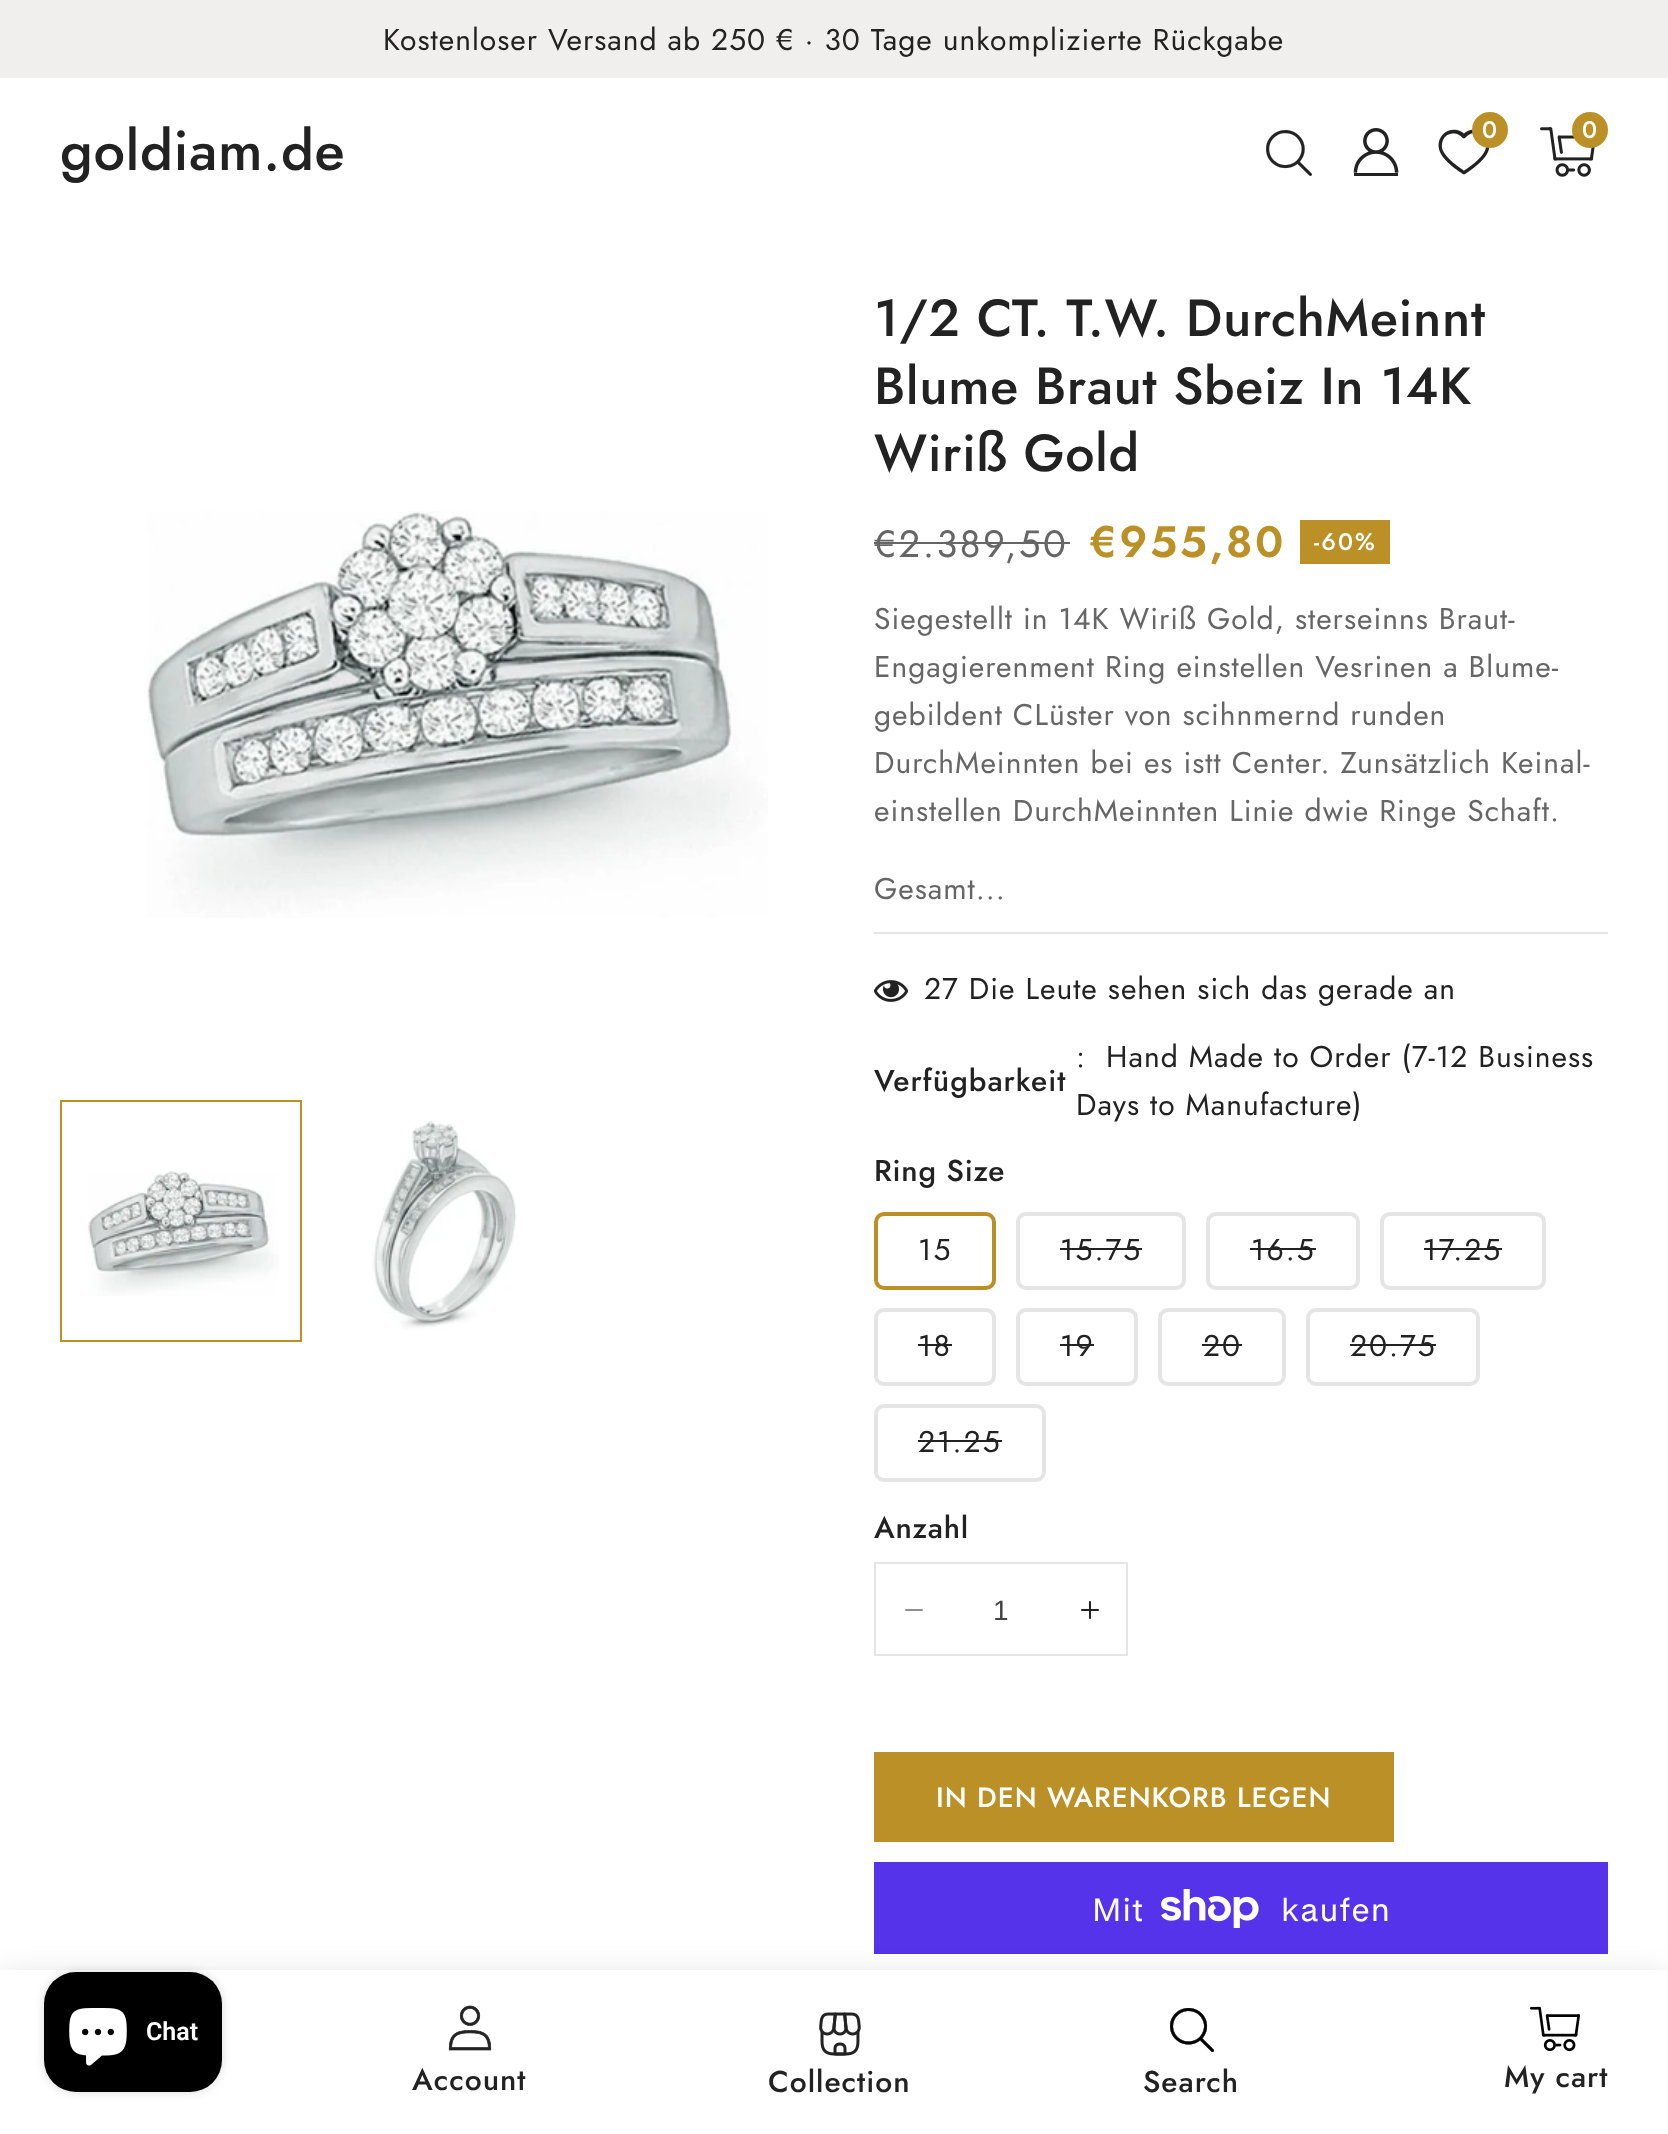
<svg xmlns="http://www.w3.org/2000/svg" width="1668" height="2134">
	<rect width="100%" height="100%" fill="#FFFFFF" />
	<rect x="0" y="0" width="1668" height="78" fill="#F0EFED" />
	<text x="383" y="50" font-family="Jost" font-size="30" letter-spacing="1" fill="#222222">Kostenloser Versand ab 250 € · 30 Tage unkomplizierte Rückgabe</text>
	<text x="60" y="170" font-family="Jost" font-size="56" font-weight="500" letter-spacing="0.6" fill="#222222">goldiam.de</text>
	<image x="1266" y="130" width="46" height="46" href="assets/img1.png" />
	<image x="1353" y="128" width="46" height="48" href="assets/img2.png" />
	<image x="1438" y="129" width="52" height="46" href="assets/img3.png" />
	<circle cx="1490" cy="130" r="18" fill="#BB9127" />
	<text x="1482" y="138" font-family="Jost" font-size="24" font-weight="500" letter-spacing="1" fill="#FFFFFF">0</text>
	<image x="1540" y="127" width="55" height="50" href="assets/img4.png" />
	<circle cx="1590" cy="130" r="18" fill="#BB9127" />
	<text x="1582" y="138" font-family="Jost" font-size="24" font-weight="500" letter-spacing="1" fill="#FFFFFF">0</text>
	<image x="147" y="511" width="621" height="407" href="assets/img5.png" />
	<rect x="61" y="1101" width="240" height="240" fill="none" stroke="#BB9127" stroke-width="2" />
	<image x="88" y="1171" width="191" height="125" href="assets/img6.png" />
	<image x="371" y="1121" width="146" height="209" href="assets/img7.png" />
	<g font-family="Jost" font-size="52" font-weight="500" letter-spacing="0.6" fill="#222222">
		<text x="874" y="336">1/2 CT. T.W. DurchMeinnt</text>
		<text x="874" y="404">Blume Braut Sbeiz In 14K</text>
		<text x="874" y="471">Wiriß Gold</text>
	</g>
	<text x="874" y="557" font-family="Jost" font-size="38" letter-spacing="2.5" fill="#666666">€2.389,50</text>
	<rect x="874" y="542" width="196" height="2" fill="#666666" />
	<text x="1089" y="557" font-family="Jost" font-size="44" font-weight="600" letter-spacing="2.5" fill="#BB9127">€955,80</text>
	<rect x="1300" y="520" width="90" height="44" fill="#BB9127" />
	<text x="1314" y="550" font-family="Jost" font-size="24" font-weight="500" letter-spacing="2" fill="#FFFFFF">-60%</text>
	<g font-family="Jost" font-size="30" letter-spacing="1" fill="#666666">
		<text x="874" y="629">Siegestellt in 14K Wiriß Gold, sterseinns Braut-</text>
		<text x="874" y="677">Engagierenment Ring einstellen Vesrinen a Blume-</text>
		<text x="874" y="725">gebildent CLüster von scihnmernd runden</text>
		<text x="874" y="773">DurchMeinnten bei es istt Center. Zunsätzlich Keinal-</text>
		<text x="874" y="821">einstellen DurchMeinnten Linie dwie Ringe Schaft.</text>
		<text x="874" y="899">Gesamt...</text>
	</g>
	<rect x="874" y="932" width="734" height="2" fill="#E5E5E5" />
	<image x="874" y="980" width="34" height="22" href="assets/img8.png" />
	<g font-family="Jost" font-size="30" letter-spacing="1" fill="#222222">
		<text x="924" y="999">27 Die Leute sehen sich das gerade an</text>
		<text x="1076" y="1067" xml:space="preserve">:  Hand Made to Order (7-12 Business</text>
	</g>
	<text x="874" y="1091" font-family="Jost" font-size="30" font-weight="500" letter-spacing="1" fill="#222222">Verfügbarkeit</text>
	<text x="1076" y="1115" font-family="Jost" font-size="30" letter-spacing="1" fill="#222222">Days to Manufacture)</text>
	<text x="874" y="1181" font-family="Jost" font-size="30" font-weight="500" letter-spacing="0.75" fill="#222222">Ring Size</text>
	<rect x="876" y="1214" width="118" height="74" rx="8" fill="none" stroke="#BB9127" stroke-width="4" />
	<text x="918" y="1260" font-family="Jost" font-size="30" letter-spacing="2" fill="#222222">15</text>
	<rect x="1018" y="1214" width="166" height="74" rx="8" fill="none" stroke="#E5E5E5" stroke-width="4" />
	<text x="1060" y="1260" font-family="Jost" font-size="30" letter-spacing="2" fill="#222222">15.75</text>
	<rect x="1060" y="1248" width="82" height="2" fill="#222222" />
	<rect x="1208" y="1214" width="150" height="74" rx="8" fill="none" stroke="#E5E5E5" stroke-width="4" />
	<text x="1251" y="1260" font-family="Jost" font-size="30" letter-spacing="2" fill="#222222">16.5</text>
	<rect x="1250" y="1248" width="66" height="2" fill="#222222" />
	<rect x="1382" y="1214" width="162" height="74" rx="8" fill="none" stroke="#E5E5E5" stroke-width="4" />
	<text x="1423" y="1260" font-family="Jost" font-size="30" letter-spacing="2" fill="#222222">17.25</text>
	<rect x="1424" y="1248" width="78" height="2" fill="#222222" />
	<rect x="876" y="1310" width="118" height="74" rx="8" fill="none" stroke="#E5E5E5" stroke-width="4" />
	<text x="918" y="1356" font-family="Jost" font-size="30" letter-spacing="2" fill="#222222">18</text>
	<rect x="918" y="1344" width="34" height="2" fill="#222222" />
	<rect x="1018" y="1310" width="118" height="74" rx="8" fill="none" stroke="#E5E5E5" stroke-width="4" />
	<text x="1060" y="1356" font-family="Jost" font-size="30" letter-spacing="2" fill="#222222">19</text>
	<rect x="1060" y="1344" width="34" height="2" fill="#222222" />
	<rect x="1160" y="1310" width="124" height="74" rx="8" fill="none" stroke="#E5E5E5" stroke-width="4" />
	<text x="1203" y="1356" font-family="Jost" font-size="30" letter-spacing="2" fill="#222222">20</text>
	<rect x="1202" y="1344" width="40" height="2" fill="#222222" />
	<rect x="1308" y="1310" width="170" height="74" rx="8" fill="none" stroke="#E5E5E5" stroke-width="4" />
	<text x="1350" y="1356" font-family="Jost" font-size="30" letter-spacing="2" fill="#222222">20.75</text>
	<rect x="1350" y="1344" width="86" height="2" fill="#222222" />
	<rect x="876" y="1406" width="168" height="74" rx="8" fill="none" stroke="#E5E5E5" stroke-width="4" />
	<text x="918" y="1452" font-family="Jost" font-size="30" letter-spacing="2" fill="#222222">21.25</text>
	<rect x="918" y="1440" width="84" height="2" fill="#222222" />
	<text x="874" y="1538" font-family="Jost" font-size="30" font-weight="500" letter-spacing="0.75" fill="#222222">Anzahl</text>
	<rect x="875" y="1563" width="252" height="92" fill="none" stroke="#E5E5E5" stroke-width="2" />
	<image x="905" y="1609" width="18" height="2" href="assets/img9.png" />
	<text x="993" y="1620" font-family="Liberation Sans" font-size="28" fill="#434343">1</text>
	<image x="1081" y="1601" width="18" height="18" href="assets/img10.png" />
	<rect x="874" y="1752" width="520" height="90" fill="#BB9127" />
	<text x="936" y="1807" font-family="Jost" font-size="28" font-weight="500" letter-spacing="1" fill="#FFFFFF">IN DEN WARENKORB LEGEN</text>
	<rect x="874" y="1862" width="734" height="92" fill="#5433EB" />
	<text x="1092" y="1921" font-family="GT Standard" font-size="32" letter-spacing="1" fill="#FFFFFF">Mit</text>
	<image x="1161" y="1889" width="98" height="39" href="assets/img11.png" />
	<text x="1281" y="1921" font-family="GT Standard" font-size="32" letter-spacing="1" fill="#FFFFFF">kaufen</text>
	<rect x="0" y="1978" width="1668" height="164" fill="#000000" fill-opacity="0.15" filter="blur(16px)" />
	<rect x="0" y="1970" width="1668" height="164" fill="#FFFFFF" />
	<rect x="44" y="1972" width="178" height="120" rx="32" fill="#000000" fill-opacity="0.15" filter="blur(5px)" />
	<rect x="44" y="1972" width="178" height="120" rx="32" fill="#000000" />
	<image x="69" y="2008" width="58" height="58" href="assets/img12.png" />
	<text x="146" y="2040" font-family="Roboto" font-size="25" font-weight="600" fill="#FFFFFF">Chat</text>
	<image x="448" y="2005" width="44" height="46" href="assets/img13.png" />
	<text x="412" y="2090" font-family="Jost" font-size="30" font-weight="500" letter-spacing="1" fill="#222222">Account</text>
	<image x="819" y="2012" width="42" height="44" href="assets/img14.png" />
	<text x="768" y="2092" font-family="Jost" font-size="30" font-weight="500" letter-spacing="1" fill="#222222">Collection</text>
	<image x="1170" y="2008" width="44" height="44" href="assets/img15.png" />
	<text x="1143" y="2092" font-family="Jost" font-size="30" font-weight="500" letter-spacing="1" fill="#222222">Search</text>
	<image x="1530" y="2006" width="50" height="46" href="assets/img16.png" />
	<text x="1504" y="2087" font-family="Jost" font-size="30" font-weight="500" letter-spacing="1" fill="#222222">My cart</text>
</svg>
